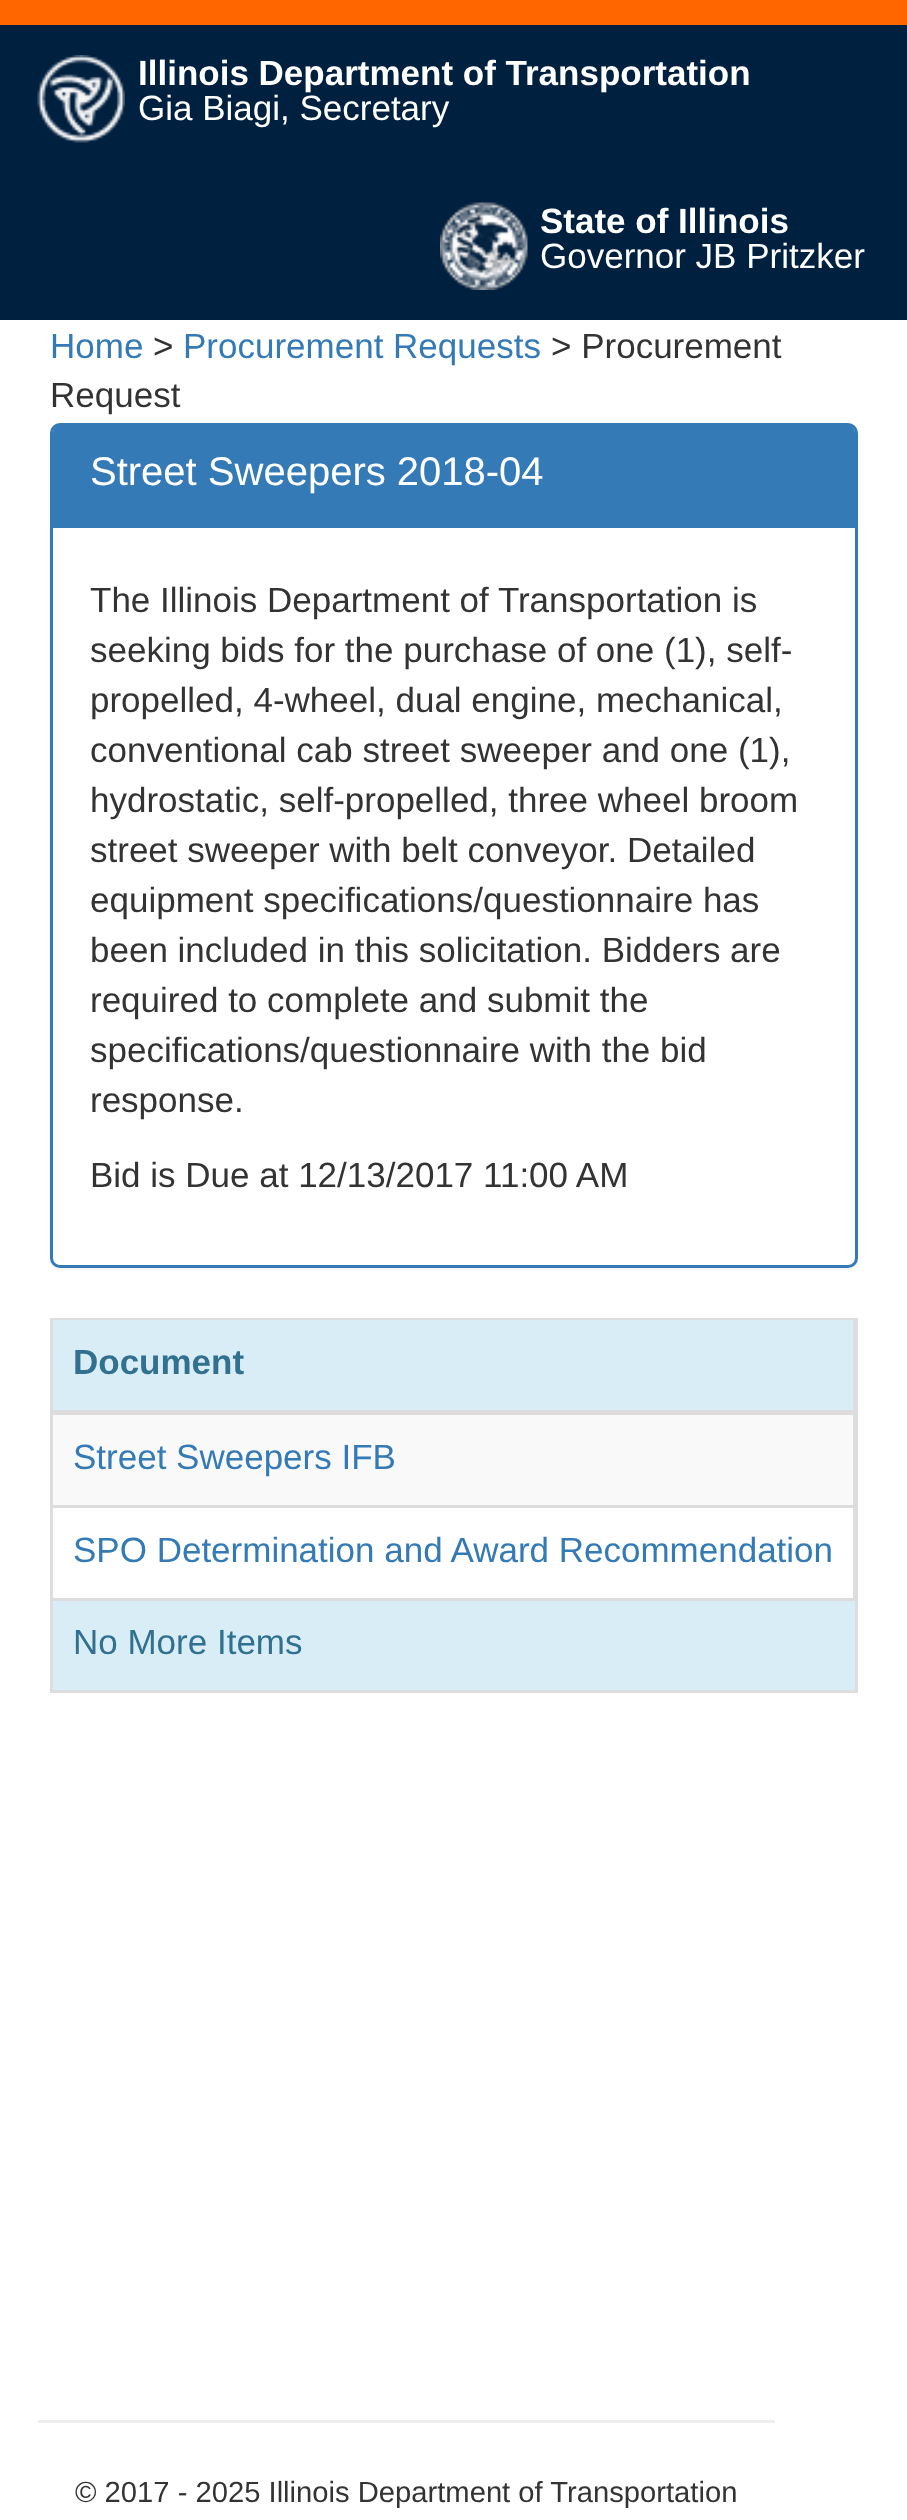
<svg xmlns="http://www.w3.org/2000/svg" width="907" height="2520">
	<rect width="100%" height="100%" fill="#FFFFFF" />
	<rect x="0" y="0" width="907" height="25" fill="#FF6600" />
	<rect x="0" y="25" width="907" height="295" fill="#00203F" />
	<image x="37" y="55" width="88" height="88" href="assets/img1.png" />
	<text x="138" y="85" font-family="Liberation Sans" font-size="35" font-weight="700" fill="#FFFFFF">Illinois Department of Transportation</text>
	<text x="138" y="120" font-family="Liberation Sans" font-size="35" fill="#FFFFFF">Gia Biagi, Secretary</text>
	<image x="440" y="202" width="88" height="88" href="assets/img2.png" />
	<text x="540" y="233" font-family="Liberation Sans" font-size="35" font-weight="700" fill="#FFFFFF">State of Illinois</text>
	<text x="540" y="268" font-family="Liberation Sans" font-size="35" fill="#FFFFFF">Governor JB Pritzker</text>
	<text x="50" y="358" font-family="Liberation Sans" font-size="35" fill="#337AB7">Home</text>
	<text x="153" y="358" font-family="Liberation Sans" font-size="35" fill="#333333">&gt;</text>
	<text x="183" y="358" font-family="Liberation Sans" font-size="35" fill="#337AB7">Procurement Requests</text>
	<g font-family="Liberation Sans" font-size="35" fill="#333333">
		<text x="551" y="358">&gt; Procurement</text>
		<text x="50" y="407">Request</text>
	</g>
	<rect x="50" y="425" width="808" height="845" rx="10" fill="#000000" fill-opacity="0.05" filter="blur(1px)" />
	<rect x="51.5" y="424.5" width="805" height="842" rx="8.5" fill="#FFFFFF" stroke="#337AB7" stroke-width="3" />
	<path d="M61 425H847C851.5 425 855 428.5 855 433V528H53V433C53 428.5 56.5 425 61 425Z" fill="#337AB7" />
	<text x="90" y="485" font-family="Liberation Sans" font-size="40" fill="#FFFFFF">Street Sweepers 2018-04</text>
	<g font-family="Liberation Sans" font-size="35" fill="#333333">
		<text x="90" y="612">The Illinois Department of Transportation is</text>
		<text x="90" y="662">seeking bids for the purchase of one (1), self-</text>
		<text x="90" y="712">propelled, 4-wheel, dual engine, mechanical,</text>
		<text x="90" y="762">conventional cab street sweeper and one (1),</text>
		<text x="90" y="812">hydrostatic, self-propelled, three wheel broom</text>
		<text x="90" y="862">street sweeper with belt conveyor. Detailed</text>
		<text x="90" y="912">equipment specifications/questionnaire has</text>
		<text x="90" y="962">been included in this solicitation. Bidders are</text>
		<text x="90" y="1012">required to complete and submit the</text>
		<text x="90" y="1062">specifications/questionnaire with the bid</text>
		<text x="90" y="1112">response.</text>
		<text x="90" y="1187">Bid is Due at 12/13/2017 11:00 AM</text>
	</g>
	<rect x="51.5" y="1319.5" width="805" height="372" fill="none" stroke="#DDDDDD" stroke-width="3" />
	<rect x="53" y="1320" width="800" height="90" fill="#D9EDF7" />
	<rect x="53" y="1598" width="802" height="3" fill="#DDDDDD" />
	<rect x="853" y="1505" width="2" height="95" fill="#DDDDDD" />
	<rect x="53" y="1505" width="802" height="3" fill="#DDDDDD" />
	<rect x="853" y="1320" width="2" height="188" fill="#DDDDDD" />
	<rect x="53" y="1410" width="802" height="5" fill="#DDDDDD" />
	<text x="73" y="1374" font-family="Liberation Sans" font-size="35" font-weight="700" fill="#31708F">Document</text>
	<rect x="53" y="1415" width="800" height="90" fill="#F9F9F9" />
	<g font-family="Liberation Sans" font-size="35" fill="#337AB7">
		<text x="73" y="1469">Street Sweepers IFB</text>
		<text x="73" y="1562">SPO Determination and Award Recommendation</text>
	</g>
	<rect x="53" y="1601" width="802" height="89" fill="#D9EDF7" />
	<text x="73" y="1654" font-family="Liberation Sans" font-size="35" fill="#31708F">No More Items</text>
	<rect x="38" y="2420" width="737" height="3" fill="#EEEEEE" />
	<text x="75" y="2502" font-family="Liberation Sans" font-size="29.2" fill="#333333">© 2017 - 2025 Illinois Department of Transportation</text>
</svg>
